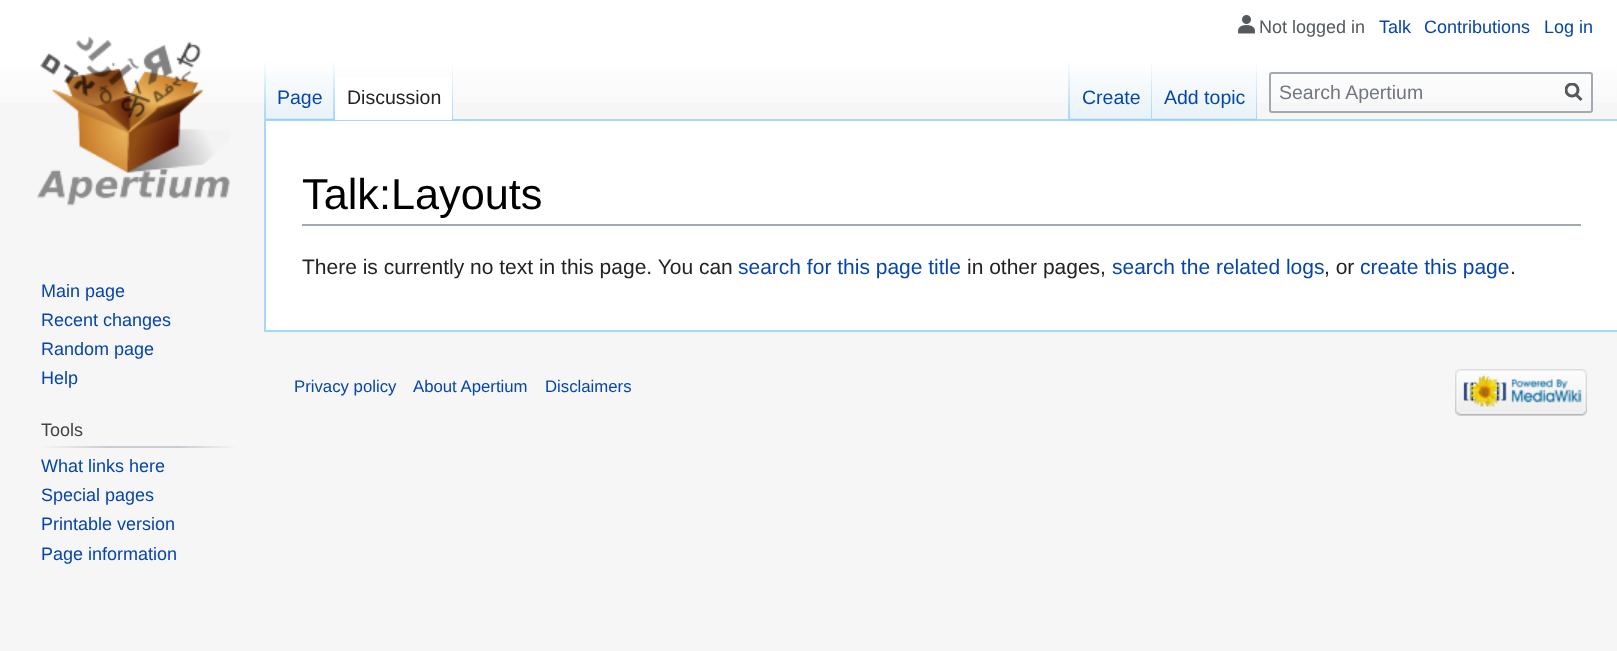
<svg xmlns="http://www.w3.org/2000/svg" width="1617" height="651">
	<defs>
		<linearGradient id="g1" gradientUnits="userSpaceOnUse" x1="809" y1="0" x2="809" y2="120"><stop offset="0.5" stop-color="#FFFFFF" /><stop offset="1" stop-color="#F6F6F6" /></linearGradient>
		<linearGradient id="g2" gradientUnits="userSpaceOnUse" x1="265" y1="60" x2="265" y2="120"><stop offset="0" stop-color="#A7D7F9" stop-opacity="0" /><stop offset="1" stop-color="#A7D7F9" /></linearGradient>
		<linearGradient id="g3" gradientUnits="userSpaceOnUse" x1="300" y1="120" x2="300" y2="60"><stop offset="0" stop-color="#77C1F6" /><stop offset="0.03" stop-color="#E8F2F8" /><stop offset="1" stop-color="#FFFFFF" /></linearGradient>
		<linearGradient id="g4" gradientUnits="userSpaceOnUse" x1="334" y1="60" x2="334" y2="120"><stop offset="0" stop-color="#A7D7F9" stop-opacity="0" /><stop offset="1" stop-color="#A7D7F9" /></linearGradient>
		<linearGradient id="g5" gradientUnits="userSpaceOnUse" x1="452" y1="60" x2="452" y2="120"><stop offset="0" stop-color="#FFFFFF" /><stop offset="1" stop-color="#A7D7F9" /></linearGradient>
		<linearGradient id="g6" gradientUnits="userSpaceOnUse" x1="1069" y1="60" x2="1069" y2="120"><stop offset="0" stop-color="#A7D7F9" stop-opacity="0" /><stop offset="1" stop-color="#A7D7F9" /></linearGradient>
		<linearGradient id="g7" gradientUnits="userSpaceOnUse" x1="1111" y1="120" x2="1111" y2="60"><stop offset="0" stop-color="#77C1F6" /><stop offset="0.03" stop-color="#E8F2F8" /><stop offset="1" stop-color="#FFFFFF" /></linearGradient>
		<linearGradient id="g8" gradientUnits="userSpaceOnUse" x1="1151" y1="60" x2="1151" y2="120"><stop offset="0" stop-color="#A7D7F9" stop-opacity="0" /><stop offset="1" stop-color="#A7D7F9" /></linearGradient>
		<linearGradient id="g9" gradientUnits="userSpaceOnUse" x1="1205" y1="120" x2="1205" y2="60"><stop offset="0" stop-color="#77C1F6" /><stop offset="0.03" stop-color="#E8F2F8" /><stop offset="1" stop-color="#FFFFFF" /></linearGradient>
		<linearGradient id="g10" gradientUnits="userSpaceOnUse" x1="1256" y1="60" x2="1256" y2="120"><stop offset="0" stop-color="#A7D7F9" stop-opacity="0" /><stop offset="1" stop-color="#A7D7F9" /></linearGradient>
		<clipPath id="clip1"><rect x="1565" y="83" width="18" height="19" /></clipPath>
		<linearGradient id="g11" gradientUnits="userSpaceOnUse" x1="41" y1="446" x2="237" y2="446"><stop offset="0" stop-color="#F6F6F6" /><stop offset="0.35" stop-color="#C8CCD1" /><stop offset="0.7" stop-color="#C8CCD1" /><stop offset="1" stop-color="#F6F6F6" /></linearGradient>
	</defs>
	<rect width="100%" height="100%" fill="#F6F6F6" />
	<rect x="0" y="0" width="1617" height="103" fill="url(#g1)" />
	<image x="1238" y="15" width="17" height="19" href="assets/img1.png" />
	<text x="1259" y="33" font-family="Liberation Sans" font-size="18" fill="#54595D">Not logged in</text>
	<g font-family="Liberation Sans" font-size="18" fill="#0645AD">
		<text x="1379" y="33">Talk</text>
		<text x="1424" y="33">Contributions</text>
		<text x="1544" y="33">Log in</text>
	</g>
	<rect x="264" y="119" width="1353" height="2" fill="#A7D7F9" />
	<rect x="264" y="330" width="1353" height="2" fill="#A7D7F9" />
	<rect x="264" y="119" width="2" height="213" fill="#A7D7F9" />
	<rect x="264" y="60" width="2" height="60" fill="url(#g2)" />
	<rect x="266" y="69" width="69" height="51" fill="url(#g3)" />
	<rect x="333" y="60" width="2" height="60" fill="url(#g4)" />
	<text x="277" y="104" font-family="Liberation Sans" font-size="19.5" fill="#0645AD">Page</text>
	<rect x="335" y="77" width="117" height="43" fill="#FFFFFF" />
	<rect x="452" y="60" width="1" height="60" fill="url(#g5)" />
	<text x="347" y="104" font-family="Liberation Sans" font-size="19.5" fill="#222222">Discussion</text>
	<rect x="1068" y="60" width="2" height="60" fill="url(#g6)" />
	<rect x="1070" y="69" width="82" height="51" fill="url(#g7)" />
	<rect x="1151" y="60" width="1" height="60" fill="url(#g8)" />
	<text x="1082" y="104" font-family="Liberation Sans" font-size="19.5" fill="#0645AD">Create</text>
	<rect x="1152" y="69" width="105" height="51" fill="url(#g9)" />
	<rect x="1256" y="60" width="1" height="60" fill="url(#g10)" />
	<text x="1164" y="104" font-family="Liberation Sans" font-size="19.5" fill="#0645AD">Add topic</text>
	<rect x="1270" y="73" width="322" height="39" rx="2" fill="none" stroke="#A2A9B1" stroke-width="2" />
	<text x="1279" y="99" font-family="Liberation Sans" font-size="19.5" fill="#72777D">Search Apertium</text>
	<path d="M1581.5 100L1575.5 94" fill="none" stroke="#54595D" stroke-width="3" />
	<g clip-path="url(#clip1)">
		<circle cx="1572" cy="90" r="6" fill="none" stroke="#54595D" stroke-width="3" />
	</g>
	<image x="37" y="36" width="193" height="170" href="assets/img2.png" />
	<g font-family="Liberation Sans" font-size="18" fill="#0645AD">
		<text x="41" y="297">Main page</text>
		<text x="41" y="326">Recent changes</text>
		<text x="41" y="355">Random page</text>
		<text x="41" y="384">Help</text>
	</g>
	<text x="41" y="436" font-family="Liberation Sans" font-size="18" fill="#444444">Tools</text>
	<rect x="41" y="446" width="196" height="2" fill="url(#g11)" />
	<g font-family="Liberation Sans" font-size="18" fill="#0645AD">
		<text x="41" y="472">What links here</text>
		<text x="41" y="501">Special pages</text>
		<text x="41" y="530">Printable version</text>
		<text x="41" y="560">Page information</text>
	</g>
	<rect x="266" y="121" width="1351" height="209" fill="#FFFFFF" />
	<rect x="302" y="224" width="1279" height="2" fill="#A2A9B1" />
	<text x="302" y="209" font-family="Liberation Sans" font-size="43.25" fill="#000000">Talk:Layouts</text>
	<text x="302" y="274" font-family="Liberation Sans" font-size="21" fill="#222222">There is currently no text in this page. You can</text>
	<text x="738" y="274" font-family="Liberation Sans" font-size="21" fill="#0645AD">search for this page title</text>
	<text x="967" y="274" font-family="Liberation Sans" font-size="21" fill="#222222">in other pages,</text>
	<text x="1112" y="274" font-family="Liberation Sans" font-size="21" fill="#0645AD">search the related logs</text>
	<text x="1324" y="274" font-family="Liberation Sans" font-size="21" fill="#222222">, or</text>
	<text x="1360" y="274" font-family="Liberation Sans" font-size="21" fill="#0645AD">create this page</text>
	<text x="1510" y="274" font-family="Liberation Sans" font-size="21" fill="#222222">.</text>
	<g font-family="Liberation Sans" font-size="16.75" fill="#0645AD">
		<text x="294" y="392">Privacy policy</text>
		<text x="413" y="392">About Apertium</text>
		<text x="545" y="392">Disclaimers</text>
	</g>
	<image x="1455" y="369" width="132" height="47" href="assets/img3.png" />
</svg>
